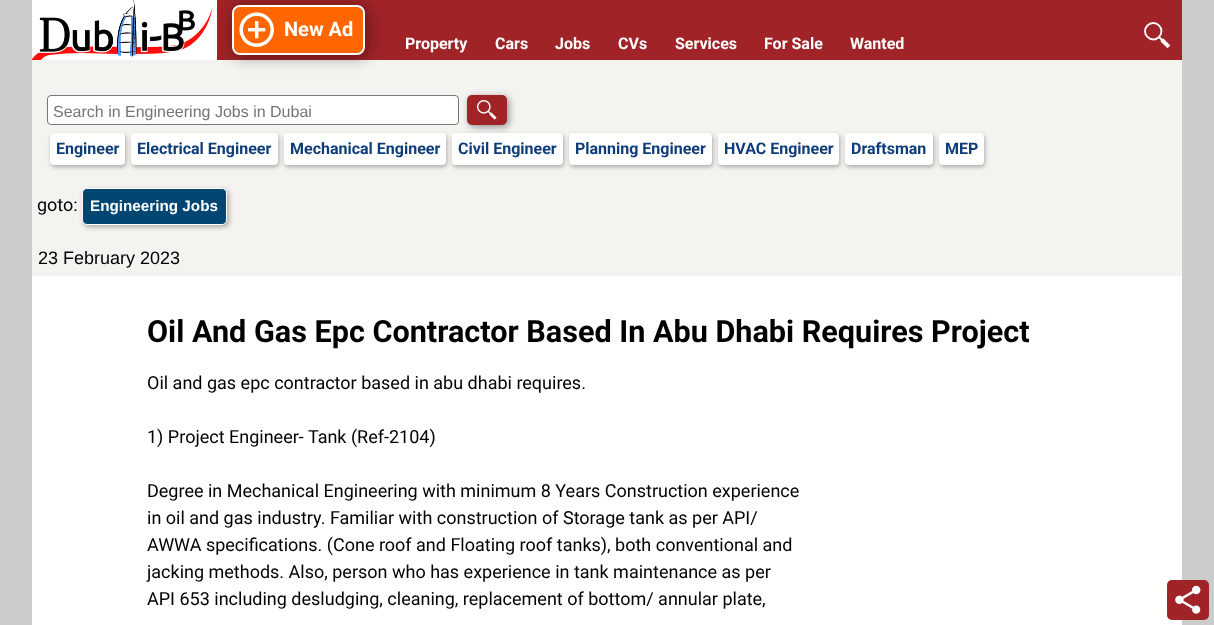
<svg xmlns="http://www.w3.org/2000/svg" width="1214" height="625">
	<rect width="100%" height="100%" fill="#CCCCCC" />
	<rect x="32" y="60" width="1150" height="216" fill="#F5F3F0" />
	<rect x="217" y="0" width="965" height="60" fill="#9F2327" />
	<rect x="213" y="0" width="4" height="60" fill="#FFFFFF" />
	<image x="32" y="0" width="181" height="60" href="assets/img1.png" />
	<rect x="234" y="7" width="133" height="50" rx="8" fill="#000000" fill-opacity="0.41" filter="blur(7.5px)" />
	<rect x="234" y="7" width="129" height="46" rx="6" fill="#FF6600" />
	<image x="239" y="12" width="35" height="35" href="assets/img2.png" />
	<rect x="233" y="6" width="131" height="48" rx="7" fill="none" stroke="#FFFFFF" stroke-width="2" />
	<text x="284" y="36" font-family="Roboto" font-size="20" font-weight="700" fill="#FFFFFF">New Ad</text>
	<g font-family="Roboto" font-size="16" font-weight="700" fill="#FFFFFF">
		<text x="405" y="49">Property</text>
		<text x="495" y="49">Cars</text>
		<text x="555" y="49">Jobs</text>
		<text x="618" y="49">CVs</text>
		<text x="675" y="49">Services</text>
		<text x="764" y="49">For Sale</text>
		<text x="850" y="49">Wanted</text>
	</g>
	<path d="M1159 37C1166.5 29 1155 18 1147.5 25.5C1140 33 1151 44.5 1159 37L1168 46M1163 39.5L1169 45.5L1167.5 47L1161.5 41" fill="none" stroke="#FFFFFF" stroke-width="1.9" stroke-linecap="round" />
	<rect x="47.5" y="95.5" width="411" height="29" rx="3.5" fill="#FFFFFF" stroke="#777777" />
	<text x="53" y="117" font-family="Liberation Sans" font-size="16" fill="#757575">Search in Engineering Jobs in Dubai</text>
	<rect x="469" y="97" width="40" height="30" rx="5" fill="#000000" fill-opacity="0.4" filter="blur(3.5px)" />
	<rect x="467" y="95" width="40" height="30" rx="5" fill="#9F2327" />
	<image x="477" y="100" width="20" height="20" href="assets/img3.png" />
	<rect x="51" y="135" width="75" height="32" rx="4" fill="#000000" fill-opacity="0.3" filter="blur(2px)" />
	<rect x="50" y="133" width="75" height="32" rx="4" fill="#FFFFFF" />
	<text x="56" y="154" font-family="Roboto" font-size="16" font-weight="700" fill="#0E3D7A">Engineer</text>
	<rect x="132" y="135" width="147" height="32" rx="4" fill="#000000" fill-opacity="0.3" filter="blur(2px)" />
	<rect x="131" y="133" width="147" height="32" rx="4" fill="#FFFFFF" />
	<text x="137" y="154" font-family="Roboto" font-size="16" font-weight="700" fill="#0E3D7A">Electrical Engineer</text>
	<rect x="285" y="135" width="162" height="32" rx="4" fill="#000000" fill-opacity="0.3" filter="blur(2px)" />
	<rect x="284" y="133" width="162" height="32" rx="4" fill="#FFFFFF" />
	<text x="290" y="154" font-family="Roboto" font-size="16" font-weight="700" fill="#0E3D7A">Mechanical Engineer</text>
	<rect x="453" y="135" width="111" height="32" rx="4" fill="#000000" fill-opacity="0.3" filter="blur(2px)" />
	<rect x="452" y="133" width="111" height="32" rx="4" fill="#FFFFFF" />
	<text x="458" y="154" font-family="Roboto" font-size="16" font-weight="700" fill="#0E3D7A">Civil Engineer</text>
	<rect x="570" y="135" width="143" height="32" rx="4" fill="#000000" fill-opacity="0.3" filter="blur(2px)" />
	<rect x="569" y="133" width="143" height="32" rx="4" fill="#FFFFFF" />
	<text x="575" y="154" font-family="Roboto" font-size="16" font-weight="700" fill="#0E3D7A">Planning Engineer</text>
	<rect x="719" y="135" width="121" height="32" rx="4" fill="#000000" fill-opacity="0.3" filter="blur(2px)" />
	<rect x="718" y="133" width="121" height="32" rx="4" fill="#FFFFFF" />
	<text x="724" y="154" font-family="Roboto" font-size="16" font-weight="700" fill="#0E3D7A">HVAC Engineer</text>
	<rect x="846" y="135" width="88" height="32" rx="4" fill="#000000" fill-opacity="0.3" filter="blur(2px)" />
	<rect x="845" y="133" width="88" height="32" rx="4" fill="#FFFFFF" />
	<text x="851" y="154" font-family="Roboto" font-size="16" font-weight="700" fill="#0E3D7A">Draftsman</text>
	<rect x="940" y="135" width="45" height="32" rx="4" fill="#000000" fill-opacity="0.3" filter="blur(2px)" />
	<rect x="939" y="133" width="45" height="32" rx="4" fill="#FFFFFF" />
	<text x="945" y="154" font-family="Roboto" font-size="16" font-weight="700" fill="#0E3D7A">MEP</text>
	<text x="37" y="211" font-family="Roboto" font-size="18" fill="#000000">goto:</text>
	<rect x="84" y="190" width="145" height="37" rx="5" fill="#000000" fill-opacity="0.3" filter="blur(2.5px)" />
	<rect x="82.5" y="188.5" width="144" height="36" rx="4.5" fill="#004672" stroke="#FFFFFF" />
	<text x="90" y="211" font-family="Liberation Sans" font-size="15.25" font-weight="700" fill="#FFFFFF">Engineering Jobs</text>
	<text x="38" y="264" font-family="Liberation Sans" font-size="18" fill="#000000">23 February 2023</text>
	<rect x="32" y="276" width="1150" height="349" fill="#FFFFFF" />
	<text x="147" y="342" font-family="Roboto" font-size="30.6" font-weight="700" fill="#000000">Oil And Gas Epc Contractor Based In Abu Dhabi Requires Project</text>
	<g font-family="Roboto" font-size="18" fill="#000000">
		<text x="147" y="389">Oil and gas epc contractor based in abu dhabi requires.</text>
		<text x="147" y="443">1) Project Engineer- Tank (Ref-2104)</text>
		<text x="147" y="497">Degree in Mechanical Engineering with minimum 8 Years Construction experience</text>
		<text x="147" y="524">in oil and gas industry. Familiar with construction of Storage tank as per API/</text>
		<text x="147" y="551">AWWA specifications. (Cone roof and Floating roof tanks), both conventional and</text>
		<text x="147" y="578">jacking methods. Also, person who has experience in tank maintenance as per</text>
		<text x="147" y="605">API 653 including desludging, cleaning, replacement of bottom/ annular plate,</text>
	</g>
	<rect x="1167" y="580" width="42" height="40" rx="5" fill="#9F2327" />
	<image x="1175" y="585" width="26" height="29" href="assets/img4.png" />
</svg>
